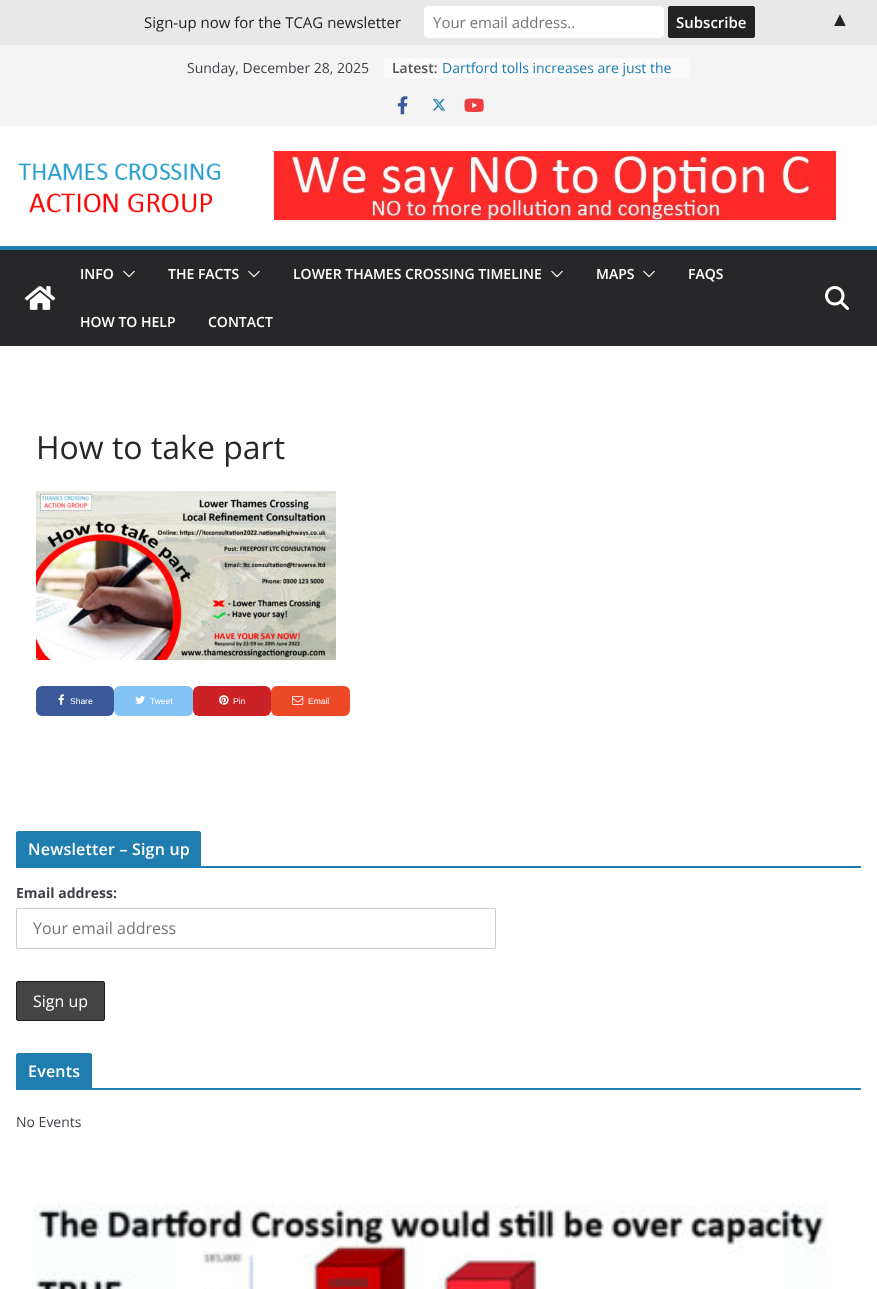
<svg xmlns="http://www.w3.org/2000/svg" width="877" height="1289">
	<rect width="100%" height="100%" fill="#FFFFFF" />
	<rect x="0" y="45" width="877" height="80" fill="#000000" fill-opacity="0.1" filter="blur(1px)" />
	<rect x="0" y="0" width="877" height="45" fill="#E8E8E8" />
	<text x="144" y="28" font-family="Open Sans" font-size="15" fill="#222222">Sign-up now for the TCAG newsletter</text>
	<rect x="424.5" y="6.5" width="239" height="31" rx="3.5" fill="#FFFFFF" stroke="#FFFFFF" />
	<text x="433" y="28" font-family="Open Sans" font-size="15" fill="#757575">Your email address..</text>
	<rect x="668.5" y="6.5" width="86" height="31" rx="1.5" fill="#222222" stroke="#222222" />
	<text x="676" y="28" font-family="Open Sans" font-size="15" font-weight="600" fill="#FFFFFF">Subscribe</text>
	<text x="830" y="26" font-family="Liberation Serif" font-size="20" fill="#222222">▲</text>
	<rect x="0" y="45" width="877" height="80" fill="#F4F4F5" />
	<text x="187" y="73" font-family="Open Sans" font-size="14" fill="#3F3F46">Sunday, December 28, 2025</text>
	<rect x="384" y="58" width="306" height="20" fill="#FAFAFA" />
	<text x="392" y="73" font-family="Open Sans" font-size="14" font-weight="600" fill="#555555">Latest:</text>
	<text x="442" y="73" font-family="Open Sans" font-size="14" fill="#207DAF">Dartford tolls increases are just the</text>
	<image x="397" y="96" width="11" height="19" href="assets/img1.png" />
	<image x="432" y="99" width="14" height="12" href="assets/img2.png" />
	<image x="464" y="98" width="20" height="14" href="assets/img3.png" />
	<image x="18" y="163" width="203" height="50" href="assets/img4.png" />
	<rect x="274" y="152" width="562" height="69" fill="#000000" fill-opacity="0.1" filter="blur(1.5px)" />
	<image x="274" y="151" width="562" height="69" href="assets/img5.png" />
	<rect x="0" y="250" width="877" height="96" fill="#27272A" />
	<rect x="0" y="246" width="877" height="4" fill="#207DAF" />
	<image x="24" y="286" width="32" height="24" href="assets/img6.png" />
	<text x="80" y="279" font-family="Open Sans" font-size="14" font-weight="600" fill="#FFFFFF">INFO</text>
	<image x="123" y="270" width="12" height="8" href="assets/img7.png" />
	<text x="168" y="279" font-family="Open Sans" font-size="14" font-weight="600" fill="#FFFFFF">THE FACTS</text>
	<image x="248" y="270" width="12" height="8" href="assets/img7.png" />
	<text x="293" y="279" font-family="Open Sans" font-size="14" font-weight="600" fill="#FFFFFF">LOWER THAMES CROSSING TIMELINE</text>
	<image x="551" y="270" width="12" height="8" href="assets/img7.png" />
	<text x="596" y="279" font-family="Open Sans" font-size="14" font-weight="600" fill="#FFFFFF">MAPS</text>
	<image x="643" y="270" width="12" height="8" href="assets/img7.png" />
	<g font-family="Open Sans" font-size="14" font-weight="600" fill="#FFFFFF">
		<text x="688" y="279">FAQS</text>
		<text x="80" y="327">HOW TO HELP</text>
		<text x="208" y="327">CONTACT</text>
	</g>
	<image x="825" y="286" width="24" height="24" href="assets/img8.png" />
	<text x="36" y="459" font-family="'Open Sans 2'" font-size="32" fill="#27272A">How to take part</text>
	<image x="36" y="491" width="300" height="169" href="assets/img9.png" />
	<rect x="36" y="686" width="78" height="30" rx="6" fill="#3B5998" />
	<image x="58" y="694" width="6" height="11" href="assets/img10.png" />
	<text x="70" y="704" font-family="Liberation Sans" font-size="8.5" fill="#FFFFFF">Share</text>
	<rect x="114" y="686" width="79" height="30" rx="6" fill="#83C3F3" />
	<image x="135" y="696" width="10" height="8" href="assets/img11.png" />
	<text x="150" y="704" font-family="Liberation Sans" font-size="8.5" fill="#FFFFFF">Tweet</text>
	<rect x="193" y="686" width="78" height="30" rx="6" fill="#CC2127" />
	<image x="219" y="695" width="10" height="10" href="assets/img12.png" />
	<text x="233" y="704" font-family="Liberation Sans" font-size="8.5" fill="#FFFFFF">Pin</text>
	<rect x="271" y="686" width="79" height="30" rx="6" fill="#ED4926" />
	<image x="292" y="696" width="12" height="9" href="assets/img13.png" />
	<text x="308" y="704" font-family="Liberation Sans" font-size="8.5" fill="#FFFFFF">Email</text>
	<rect x="16" y="866" width="845" height="2" fill="#207DAF" />
	<path d="M18 831H199C200 831 201 832 201 833V866H16V833C16 832 17 831 18 831Z" fill="#207DAF" />
	<text x="28" y="855" font-family="Open Sans" font-size="16" font-weight="600" letter-spacing="0.2" fill="#FFFFFF">Newsletter – Sign up</text>
	<text x="16" y="898" font-family="Open Sans" font-size="14" font-weight="700" fill="#3F3F46">Email address:</text>
	<rect x="16.5" y="908.5" width="479" height="40" rx="1.5" fill="none" stroke="#CCCCCC" />
	<text x="33" y="934" font-family="Open Sans" font-size="16" fill="#757575">Your email address</text>
	<rect x="16.5" y="981.5" width="88" height="39" rx="1.5" fill="#444444" stroke="#1E1E1E" />
	<text x="33" y="1007" font-family="Open Sans" font-size="16" fill="#FFFFFF">Sign up</text>
	<rect x="16" y="1088" width="845" height="2" fill="#207DAF" />
	<path d="M18 1053H90C91 1053 92 1054 92 1055V1088H16V1055C16 1054 17 1053 18 1053Z" fill="#207DAF" />
	<text x="28" y="1077" font-family="Open Sans" font-size="16" font-weight="600" letter-spacing="0.2" fill="#FFFFFF">Events</text>
	<text x="16" y="1127" font-family="Open Sans" font-size="14" fill="#3F3F46">No Events</text>
	<image x="33" y="1203" width="794" height="86" href="assets/img14.png" />
</svg>
